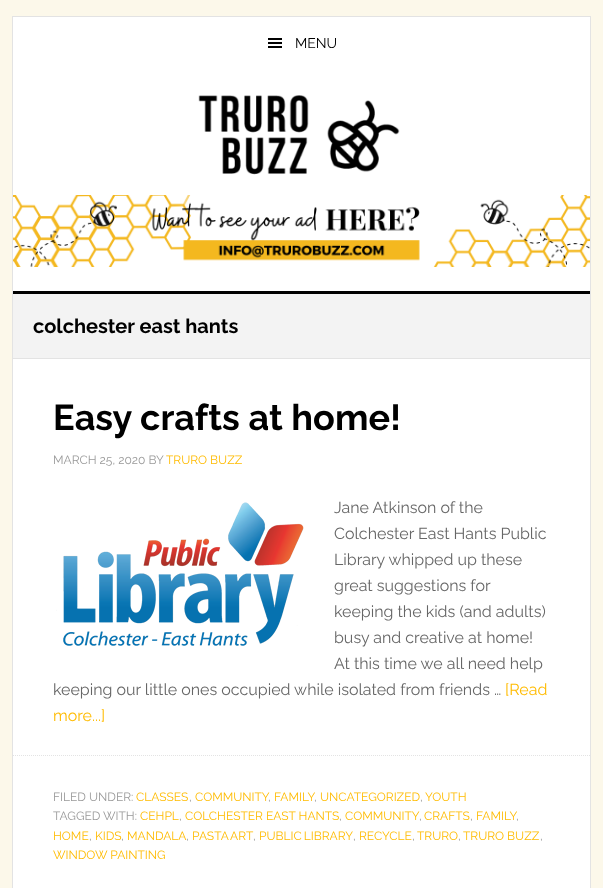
<svg xmlns="http://www.w3.org/2000/svg" width="603" height="888">
	<rect width="100%" height="100%" fill="#FCF8EA" />
	<rect x="12.5" y="16.5" width="578" height="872" fill="#FFFFFF" stroke="#E3E3E3" />
	<image x="268" y="38" width="14" height="10" href="assets/img1.png" />
	<text x="295" y="48" font-family="Raleway" font-size="14" fill="#000000">MENU</text>
	<rect x="13" y="291" width="577" height="3" fill="#000000" />
	<image x="198" y="95" width="202" height="80" href="assets/img2.png" />
	<image x="13" y="195" width="577" height="72" href="assets/img3.png" />
	<rect x="13" y="294" width="577" height="64" fill="#F3F3F3" />
	<rect x="13" y="358" width="577" height="1" fill="#E3E3E3" />
	<text x="33" y="333" font-family="Raleway" font-size="20" font-weight="700" fill="#000000">colchester east hants</text>
	<text x="53" y="430" font-family="Raleway" font-size="36" font-weight="700" fill="#000000">Easy crafts at home!</text>
	<text x="53" y="464" font-family="Raleway" font-size="12" fill="#999999">MARCH 25, 2020 BY</text>
	<text x="166" y="464" font-family="Raleway" font-size="12" fill="#FFBB00">TRURO BUZZ</text>
	<g font-family="Raleway" font-size="16" fill="#666666">
		<text x="334" y="513">Jane Atkinson of the</text>
		<text x="334" y="539">Colchester East Hants Public</text>
		<text x="334" y="565">Library whipped up these</text>
		<text x="334" y="591">great suggestions for</text>
		<text x="334" y="617">keeping the kids (and adults)</text>
		<text x="334" y="643">busy and creative at home!</text>
		<text x="334" y="669">At this time we all need help</text>
		<text x="53" y="695">keeping our little ones occupied while isolated from friends …</text>
	</g>
	<g font-family="Raleway" font-size="16" fill="#FFBB00">
		<text x="505" y="695">[Read</text>
		<text x="53" y="721">more...]</text>
	</g>
	<image x="56" y="502" width="248" height="144" href="assets/img4.png" />
	<path d="M13 755.5H590" fill="none" stroke="#E3E3E3" stroke-dasharray="1 1" />
	<text x="53" y="801" font-family="Raleway" font-size="12" fill="#999999">FILED UNDER:</text>
	<text x="136" y="801" font-family="Raleway" font-size="12" fill="#FFBB00">CLASSES</text>
	<text x="189" y="801" font-family="Raleway" font-size="12" fill="#999999">,</text>
	<text x="195" y="801" font-family="Raleway" font-size="12" fill="#FFBB00">COMMUNITY</text>
	<text x="268" y="801" font-family="Raleway" font-size="12" fill="#999999">,</text>
	<g font-family="Raleway" font-size="12" fill="#FFBB00">
		<text x="274" y="801">FAMILY</text>
		<text x="320" y="801">UNCATEGORIZED</text>
		<text x="425" y="801">YOUTH</text>
	</g>
	<g font-family="Raleway" font-size="12" fill="#999999">
		<text x="314" y="801">,</text>
		<text x="420" y="801">,</text>
		<text x="53" y="820">TAGGED WITH:</text>
	</g>
	<text x="140" y="820" font-family="Raleway" font-size="12" fill="#FFBB00">CEHPL</text>
	<text x="179" y="820" font-family="Raleway" font-size="12" fill="#999999">,</text>
	<text x="185" y="820" font-family="Raleway" font-size="12" fill="#FFBB00">COLCHESTER EAST HANTS</text>
	<text x="339" y="820" font-family="Raleway" font-size="12" fill="#999999">,</text>
	<g font-family="Raleway" font-size="12" fill="#FFBB00">
		<text x="345" y="820">COMMUNITY</text>
		<text x="424" y="820">CRAFTS</text>
		<text x="476" y="820">FAMILY</text>
	</g>
	<g font-family="Raleway" font-size="12" fill="#999999">
		<text x="419" y="820">,</text>
		<text x="470" y="820">,</text>
		<text x="516" y="820">,</text>
	</g>
	<text x="53" y="840" font-family="Raleway" font-size="12" fill="#FFBB00">HOME</text>
	<text x="89" y="840" font-family="Raleway" font-size="12" fill="#999999">,</text>
	<text x="95" y="840" font-family="Raleway" font-size="12" fill="#FFBB00">KIDS</text>
	<text x="121" y="840" font-family="Raleway" font-size="12" fill="#999999">,</text>
	<text x="127" y="840" font-family="Raleway" font-size="12" fill="#FFBB00">MANDALA</text>
	<text x="186" y="840" font-family="Raleway" font-size="12" fill="#999999">,</text>
	<text x="192" y="840" word-spacing="-1" font-family="Raleway" font-size="12" fill="#FFBB00">PASTA ART</text>
	<text x="253" y="840" font-family="Raleway" font-size="12" fill="#999999">,</text>
	<text x="259" y="840" word-spacing="-1" font-family="Raleway" font-size="12" fill="#FFBB00">PUBLIC LIBRARY</text>
	<text x="353" y="840" font-family="Raleway" font-size="12" fill="#999999">,</text>
	<text x="359" y="840" font-family="Raleway" font-size="12" fill="#FFBB00">RECYCLE</text>
	<text x="412" y="840" font-family="Raleway" font-size="12" fill="#999999">,</text>
	<text x="417" y="840" font-family="Raleway" font-size="12" fill="#FFBB00">TRURO</text>
	<text x="458" y="840" font-family="Raleway" font-size="12" fill="#999999">,</text>
	<text x="463" y="840" font-family="Raleway" font-size="12" fill="#FFBB00">TRURO BUZZ</text>
	<text x="540" y="840" font-family="Raleway" font-size="12" fill="#999999">,</text>
	<text x="53" y="859" font-family="Raleway" font-size="12" fill="#FFBB00">WINDOW PAINTING</text>
</svg>
